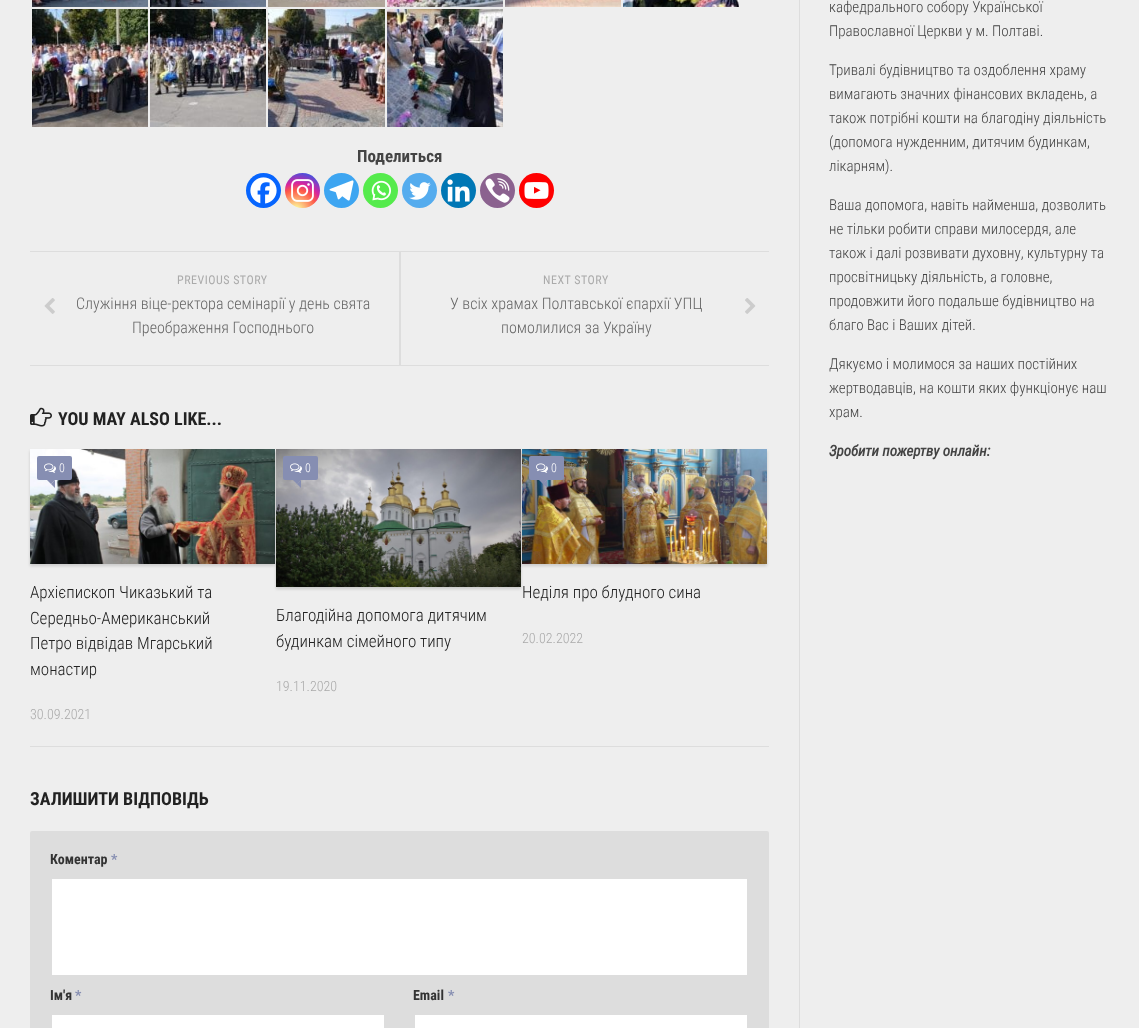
<svg xmlns="http://www.w3.org/2000/svg" width="1139" height="1028">
	<defs>
		<radialGradient id="g1" gradientUnits="userSpaceOnUse" cx="296" cy="210" r="45"><stop offset="0" stop-color="#FDF497" /><stop offset="0.05" stop-color="#FDF497" /><stop offset="0.45" stop-color="#FD5949" /><stop offset="0.6" stop-color="#D6249F" /><stop offset="0.9" stop-color="#285AEB" /></radialGradient>
	</defs>
	<rect width="100%" height="100%" fill="#EEEEEE" />
	<rect x="799" y="0" width="1" height="1028" fill="#DDDDDD" />
	<image x="32" y="0" width="116" height="7" href="assets/img1.png" />
	<image x="150" y="0" width="116" height="7" href="assets/img2.png" />
	<image x="268" y="0" width="117" height="7" href="assets/img3.png" />
	<image x="387" y="0" width="116" height="7" href="assets/img4.png" />
	<image x="505" y="0" width="116" height="7" href="assets/img5.png" />
	<image x="623" y="0" width="116" height="7" href="assets/img6.png" />
	<image x="32" y="9" width="116" height="118" href="assets/img7.png" />
	<image x="150" y="9" width="116" height="118" href="assets/img8.png" />
	<image x="268" y="9" width="117" height="118" href="assets/img9.png" />
	<image x="387" y="9" width="116" height="118" href="assets/img10.png" />
	<text x="357" y="162" font-family="Roboto Condensed" font-size="17" font-weight="700" fill="#444444">Поделиться</text>
	<circle cx="263.5" cy="190.5" r="17.5" fill="#0765FE" />
	<image x="250" y="177" width="27" height="27" href="assets/img11.png" />
	<circle cx="302.5" cy="190.5" r="17.5" fill="url(#g1)" />
	<image x="291" y="179" width="23" height="23" href="assets/img12.png" />
	<circle cx="341.5" cy="190.5" r="17.5" fill="#3DA5F1" />
	<image x="329" y="180" width="25" height="21" href="assets/img13.png" />
	<circle cx="380.5" cy="190.5" r="17.5" fill="#55EB4C" />
	<image x="371" y="180" width="20" height="21" href="assets/img14.png" />
	<circle cx="419.5" cy="190.5" r="17.5" fill="#55ACEE" />
	<image x="409" y="182" width="22" height="18" href="assets/img15.png" />
	<circle cx="458.5" cy="190.5" r="17.5" fill="#0077B5" />
	<image x="447" y="179" width="23" height="23" href="assets/img16.png" />
	<circle cx="497.5" cy="190.5" r="17.5" fill="#8B628F" />
	<image x="485" y="178" width="25" height="25" href="assets/img17.png" />
	<circle cx="536.5" cy="190.5" r="17.5" fill="#FF0000" />
	<image x="524" y="182" width="25" height="17" href="assets/img18.png" />
	<rect x="30" y="251" width="739" height="1" fill="#DDDDDD" />
	<rect x="30" y="365" width="739" height="1" fill="#DDDDDD" />
	<text x="177" y="284" font-family="Roboto Condensed" font-size="12" letter-spacing="0.5" fill="#AAAAAA">PREVIOUS STORY</text>
	<image x="44" y="298" width="11" height="16" href="assets/img19.png" />
	<g font-family="Roboto Condensed" font-size="16" font-weight="300" fill="#666666">
		<text x="76" y="309">Служіння віце-ректора семінарії у день свята</text>
		<text x="132" y="333">Преображення Господнього</text>
	</g>
	<rect x="399" y="252" width="2" height="113" fill="#DDDDDD" />
	<text x="543" y="284" font-family="Roboto Condensed" font-size="12" letter-spacing="0.5" fill="#AAAAAA">NEXT STORY</text>
	<text x="450" y="309" font-family="Roboto Condensed" font-size="16" font-weight="300" fill="#666666">У всіх храмах Полтавської єпархії УПЦ</text>
	<image x="745" y="298" width="11" height="16" href="assets/img20.png" />
	<text x="501" y="333" font-family="Roboto Condensed" font-size="16" font-weight="300" fill="#666666">помолилися за Україну</text>
	<image x="30" y="407" width="22" height="20" href="assets/img21.png" />
	<text x="58" y="425" font-family="Roboto Condensed" font-size="18" font-weight="700" fill="#222222">YOU MAY ALSO LIKE...</text>
	<rect x="30" y="746" width="739" height="1" fill="#DDDDDD" />
	<rect x="30" y="451" width="245" height="115" fill="#000000" fill-opacity="0.15" filter="blur(1.5px)" />
	<image x="30" y="449" width="245" height="115" href="assets/img22.png" />
	<rect x="37" y="456" width="35" height="24" rx="2" fill="#868EB2" />
	<image x="44" y="463" width="12" height="10" href="assets/img23.png" />
	<text x="59" y="472" font-family="Roboto Condensed" font-size="12" font-weight="300" fill="#FFFFFF">0</text>
	<path d="M47 480H55L51 484Z" fill="#868EB2" />
	<path d="M55 480V488L51 484Z" fill="#868EB2" />
	<g font-family="Roboto Condensed" font-size="17" font-weight="300" fill="#222222">
		<text x="30" y="598">Архієпископ Чиказький та</text>
		<text x="30" y="624">Середньо-Американський</text>
		<text x="30" y="649">Петро відвідав Мгарський</text>
		<text x="30" y="675">монастир</text>
	</g>
	<text x="30" y="719" font-family="Roboto Condensed" font-size="14" font-weight="300" fill="#AAAAAA">30.09.2021</text>
	<rect x="276" y="451" width="245" height="138" fill="#000000" fill-opacity="0.15" filter="blur(1.5px)" />
	<image x="276" y="449" width="245" height="138" href="assets/img24.png" />
	<rect x="283" y="456" width="35" height="24" rx="2" fill="#868EB2" />
	<image x="290" y="463" width="12" height="10" href="assets/img23.png" />
	<text x="305" y="472" font-family="Roboto Condensed" font-size="12" font-weight="300" fill="#FFFFFF">0</text>
	<path d="M293 480H301L297 484Z" fill="#868EB2" />
	<path d="M301 480V488L297 484Z" fill="#868EB2" />
	<g font-family="Roboto Condensed" font-size="17" font-weight="300" fill="#222222">
		<text x="276" y="621">Благодійна допомога дитячим</text>
		<text x="276" y="647">будинкам сімейного типу</text>
	</g>
	<text x="276" y="691" font-family="Roboto Condensed" font-size="14" font-weight="300" fill="#AAAAAA">19.11.2020</text>
	<rect x="522" y="451" width="245" height="115" fill="#000000" fill-opacity="0.15" filter="blur(1.5px)" />
	<image x="522" y="449" width="245" height="115" href="assets/img25.png" />
	<rect x="529" y="456" width="35" height="24" rx="2" fill="#868EB2" />
	<image x="536" y="463" width="12" height="10" href="assets/img23.png" />
	<text x="551" y="472" font-family="Roboto Condensed" font-size="12" font-weight="300" fill="#FFFFFF">0</text>
	<path d="M539 480H547L543 484Z" fill="#868EB2" />
	<path d="M547 480V488L543 484Z" fill="#868EB2" />
	<text x="522" y="598" font-family="Roboto Condensed" font-size="17" font-weight="300" fill="#222222">Неділя про блудного сина</text>
	<text x="522" y="643" font-family="Roboto Condensed" font-size="14" font-weight="300" fill="#AAAAAA">20.02.2022</text>
	<text x="30" y="805" font-family="Roboto Condensed" font-size="18" font-weight="700" fill="#222222">ЗАЛИШИТИ ВІДПОВІДЬ</text>
	<rect x="30" y="831" width="739" height="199" rx="2" fill="#DDDDDD" />
	<text x="50" y="864" font-family="Roboto Condensed" font-size="14" font-weight="700" fill="#333333">Коментар</text>
	<text x="111" y="864" font-family="Roboto Condensed" font-size="14" font-weight="700" fill="#868EB2">*</text>
	<rect x="52" y="879" width="695" height="96" fill="#FFFFFF" />
	<text x="50" y="1000" font-family="Roboto Condensed" font-size="14" font-weight="700" fill="#333333">Ім'я</text>
	<text x="75" y="1000" font-family="Roboto Condensed" font-size="14" font-weight="700" fill="#868EB2">*</text>
	<rect x="52" y="1015" width="332" height="13" fill="#FFFFFF" />
	<text x="413" y="1000" font-family="Roboto Condensed" font-size="14" font-weight="700" fill="#333333">Email</text>
	<text x="448" y="1000" font-family="Roboto Condensed" font-size="14" font-weight="700" fill="#868EB2">*</text>
	<rect x="415" y="1015" width="332" height="13" fill="#FFFFFF" />
	<g font-family="Roboto Condensed" font-size="15" font-weight="300" fill="#444444">
		<text x="829" y="12">кафедрального собору Української</text>
		<text x="829" y="36">Православної Церкви у м. Полтаві.</text>
		<text x="829" y="75">Тривалі будівництво та оздоблення храму</text>
		<text x="829" y="99">вимагають значних фінансових вкладень, а</text>
		<text x="829" y="123">також потрібні кошти на благодіну діяльність</text>
		<text x="829" y="147">(допомога нужденним, дитячим будинкам,</text>
		<text x="829" y="171">лікарням).</text>
		<text x="829" y="210">Ваша допомога, навіть найменша, дозволить</text>
		<text x="829" y="234">не тільки робити справи милосердя, але</text>
		<text x="829" y="258">також і далі розвивати духовну, культурну та</text>
		<text x="829" y="282">просвітницьку діяльність, а головне,</text>
		<text x="829" y="306">продовжити його подальше будівництво на</text>
		<text x="829" y="330">благо Вас і Ваших дітей.</text>
		<text x="829" y="369">Дякуємо і молимося за наших постійних</text>
		<text x="829" y="393">жертводавців, на кошти яких функціонує наш</text>
		<text x="829" y="417">храм.</text>
	</g>
	<text x="829" y="456" font-family="Roboto Condensed" font-size="15" font-weight="700" font-style="italic" fill="#444444">Зробити пожертву онлайн:</text>
</svg>
